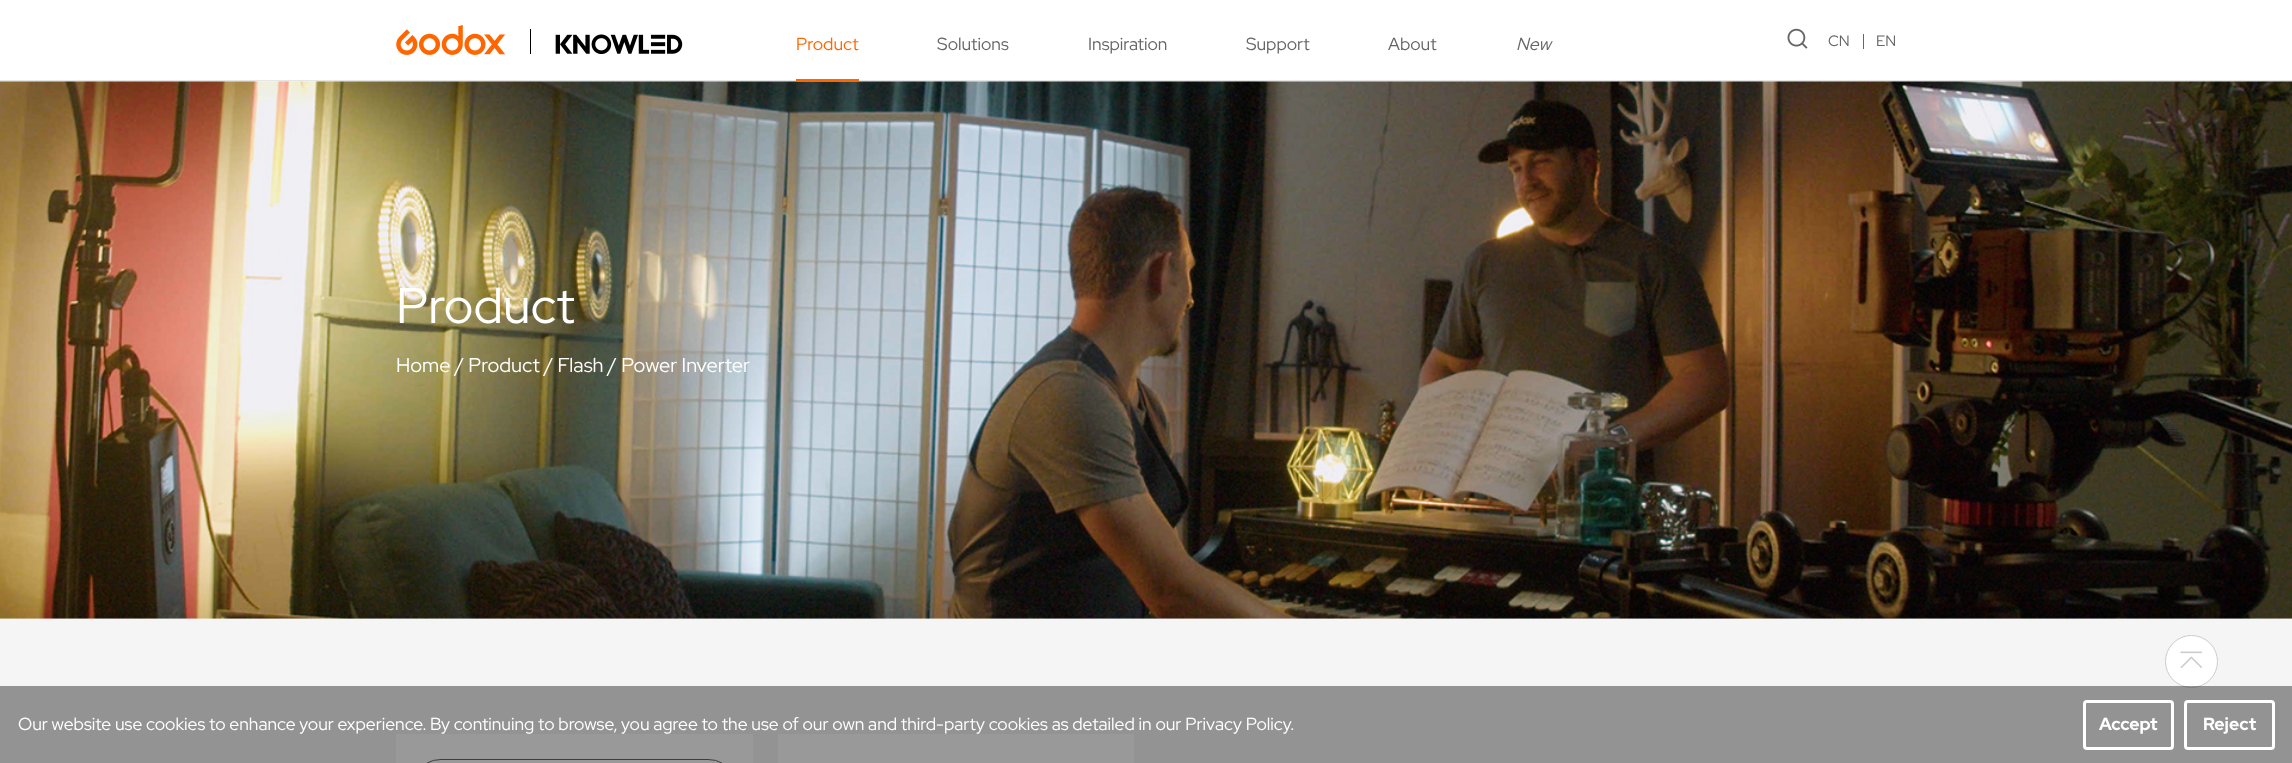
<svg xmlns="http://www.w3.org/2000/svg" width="2292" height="763">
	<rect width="100%" height="100%" fill="#F5F5F5" />
	<rect x="0" y="0" width="2292" height="80" fill="#FFFFFF" />
	<rect x="0" y="80" width="2292" height="1" fill="#E6E6E6" />
	<image x="396" y="25" width="109" height="30" href="assets/img1.png" />
	<rect x="530" y="29" width="1" height="25" fill="#000000" />
	<image x="555" y="34" width="128" height="20" href="assets/img2.png" />
	<image x="0" y="81" width="2292" height="538" href="assets/img4.png" />
	<rect x="796" y="79" width="63" height="3" fill="#FF6600" />
	<text x="796" y="50" font-family="Red Hat Display" font-size="17.5" fill="#FF6600">Product</text>
	<g font-family="Red Hat Display" font-size="17.5" fill="#666666">
		<text x="937" y="50">Solutions</text>
		<text x="1088" y="50">Inspiration</text>
		<text x="1246" y="50">Support</text>
		<text x="1388" y="50">About</text>
	</g>
	<text x="1516" y="50" font-family="Red Hat Display" font-size="17.5" font-style="italic" fill="#666666">New</text>
	<image x="1787" y="28" width="21" height="21" href="assets/img3.png" />
	<rect x="1863" y="34" width="1" height="15" fill="#666666" />
	<g font-family="Red Hat Display" font-size="15" fill="#666666">
		<text x="1828" y="46">CN</text>
		<text x="1876" y="46">EN</text>
	</g>
	<text x="396" y="323" font-family="Red Hat Display" font-size="50" fill="#FFFFFF">Product</text>
	<text x="396" y="372" font-family="Red Hat Display" font-size="20" fill="#FFFFFF">Home / Product / Flash / Power Inverter</text>
	<rect x="396" y="734" width="357" height="29" fill="#FFFFFF" />
	<rect x="421.5" y="759.5" width="306" height="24" rx="19.5" fill="none" stroke="#666666" />
	<rect x="778" y="734" width="356" height="29" fill="#FFFFFF" />
	<circle cx="2191.5" cy="661.5" r="26" fill="#FFFFFF" stroke="#CCCCCC" />
	<image x="2180" y="651" width="23" height="17" href="assets/img5.png" />
	<rect x="0" y="686" width="2292" height="77" fill="#000000" fill-opacity="0.4" />
	<text x="18" y="730" font-family="Red Hat Display" font-size="17.5" fill="#FFFFFF">Our website use cookies to enhance your experience. By continuing to browse, you agree to the use of our own and third-party cookies as detailed in our Privacy Policy.</text>
	<rect x="2084.5" y="701.5" width="88" height="47" rx="2.5" fill="none" stroke="#FFFFFF" stroke-width="3" />
	<text x="2099" y="730" font-family="Red Hat Display" font-size="17.5" font-weight="700" fill="#FFFFFF">Accept</text>
	<rect x="2185.5" y="701.5" width="88" height="47" rx="2.5" fill="none" stroke="#FFFFFF" stroke-width="3" />
	<text x="2203" y="730" font-family="Red Hat Display" font-size="17.5" font-weight="700" fill="#FFFFFF">Reject</text>
</svg>
